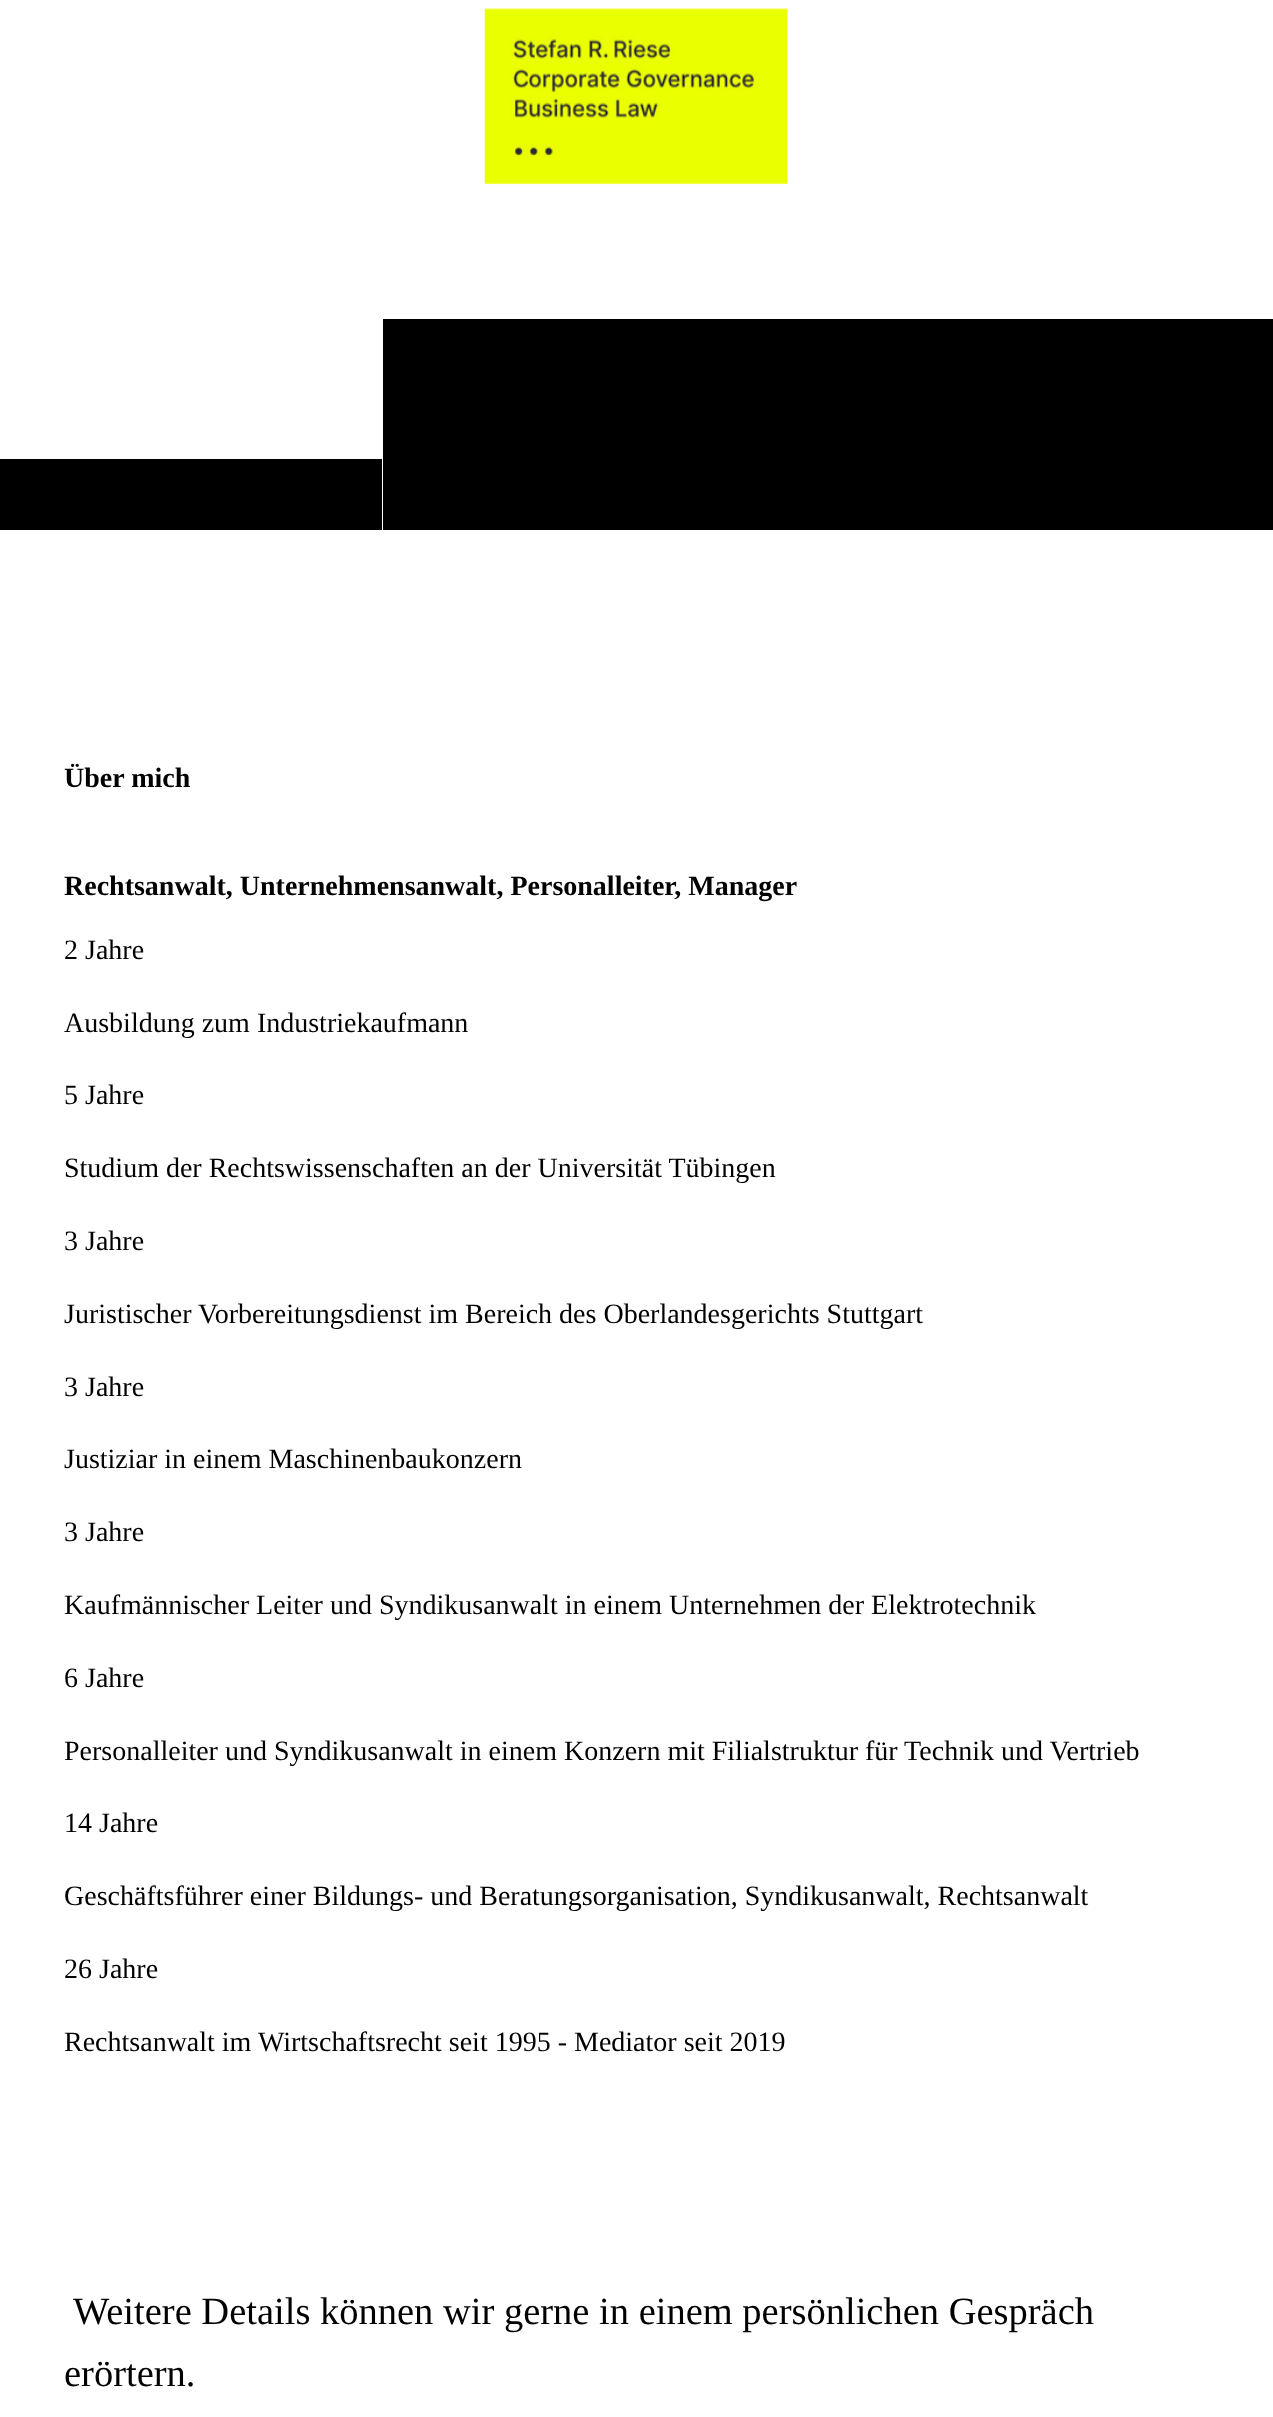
<svg xmlns="http://www.w3.org/2000/svg" width="1273" height="2417">
	<rect width="100%" height="100%" fill="#FFFFFF" />
	<image x="484" y="8" width="304" height="177" href="assets/img1.png" />
	<rect x="0" y="459" width="382" height="71" fill="#000000" />
	<rect x="383" y="319" width="890" height="211" fill="#000000" />
	<g font-family="Liberation Serif" font-size="28" font-weight="700" fill="#000000">
		<text x="64" y="787">Über mich</text>
		<text x="64" y="895">Rechtsanwalt, Unternehmensanwalt, Personalleiter, Manager</text>
	</g>
	<g font-family="Liberation Serif" font-size="28" fill="#000000">
		<text x="64" y="959">2 Jahre</text>
		<text x="64" y="1032">Ausbildung zum Industriekaufmann</text>
		<text x="64" y="1104">5 Jahre</text>
		<text x="64" y="1177">Studium der Rechtswissenschaften an der Universität Tübingen</text>
		<text x="64" y="1250">3 Jahre</text>
		<text x="64" y="1323">Juristischer Vorbereitungsdienst im Bereich des Oberlandesgerichts Stuttgart</text>
		<text x="64" y="1396">3 Jahre</text>
		<text x="64" y="1468">Justiziar in einem Maschinenbaukonzern</text>
		<text x="64" y="1541">3 Jahre</text>
		<text x="64" y="1614">Kaufmännischer Leiter und Syndikusanwalt in einem Unternehmen der Elektrotechnik</text>
		<text x="64" y="1687">6 Jahre</text>
		<text x="64" y="1760">Personalleiter und Syndikusanwalt in einem Konzern mit Filialstruktur für Technik und Vertrieb</text>
		<text x="64" y="1832">14 Jahre</text>
		<text x="64" y="1905">Geschäftsführer einer Bildungs- und Beratungsorganisation, Syndikusanwalt, Rechtsanwalt</text>
		<text x="64" y="1978">26 Jahre</text>
		<text x="64" y="2051">Rechtsanwalt im Wirtschaftsrecht seit 1995 - Mediator seit 2019</text>
	</g>
	<g font-family="Liberation Serif" font-size="38.5" fill="#000000">
		<text x="73" y="2324">Weitere Details können wir gerne in einem persönlichen Gespräch</text>
		<text x="64" y="2386">erörtern.</text>
	</g>
</svg>
